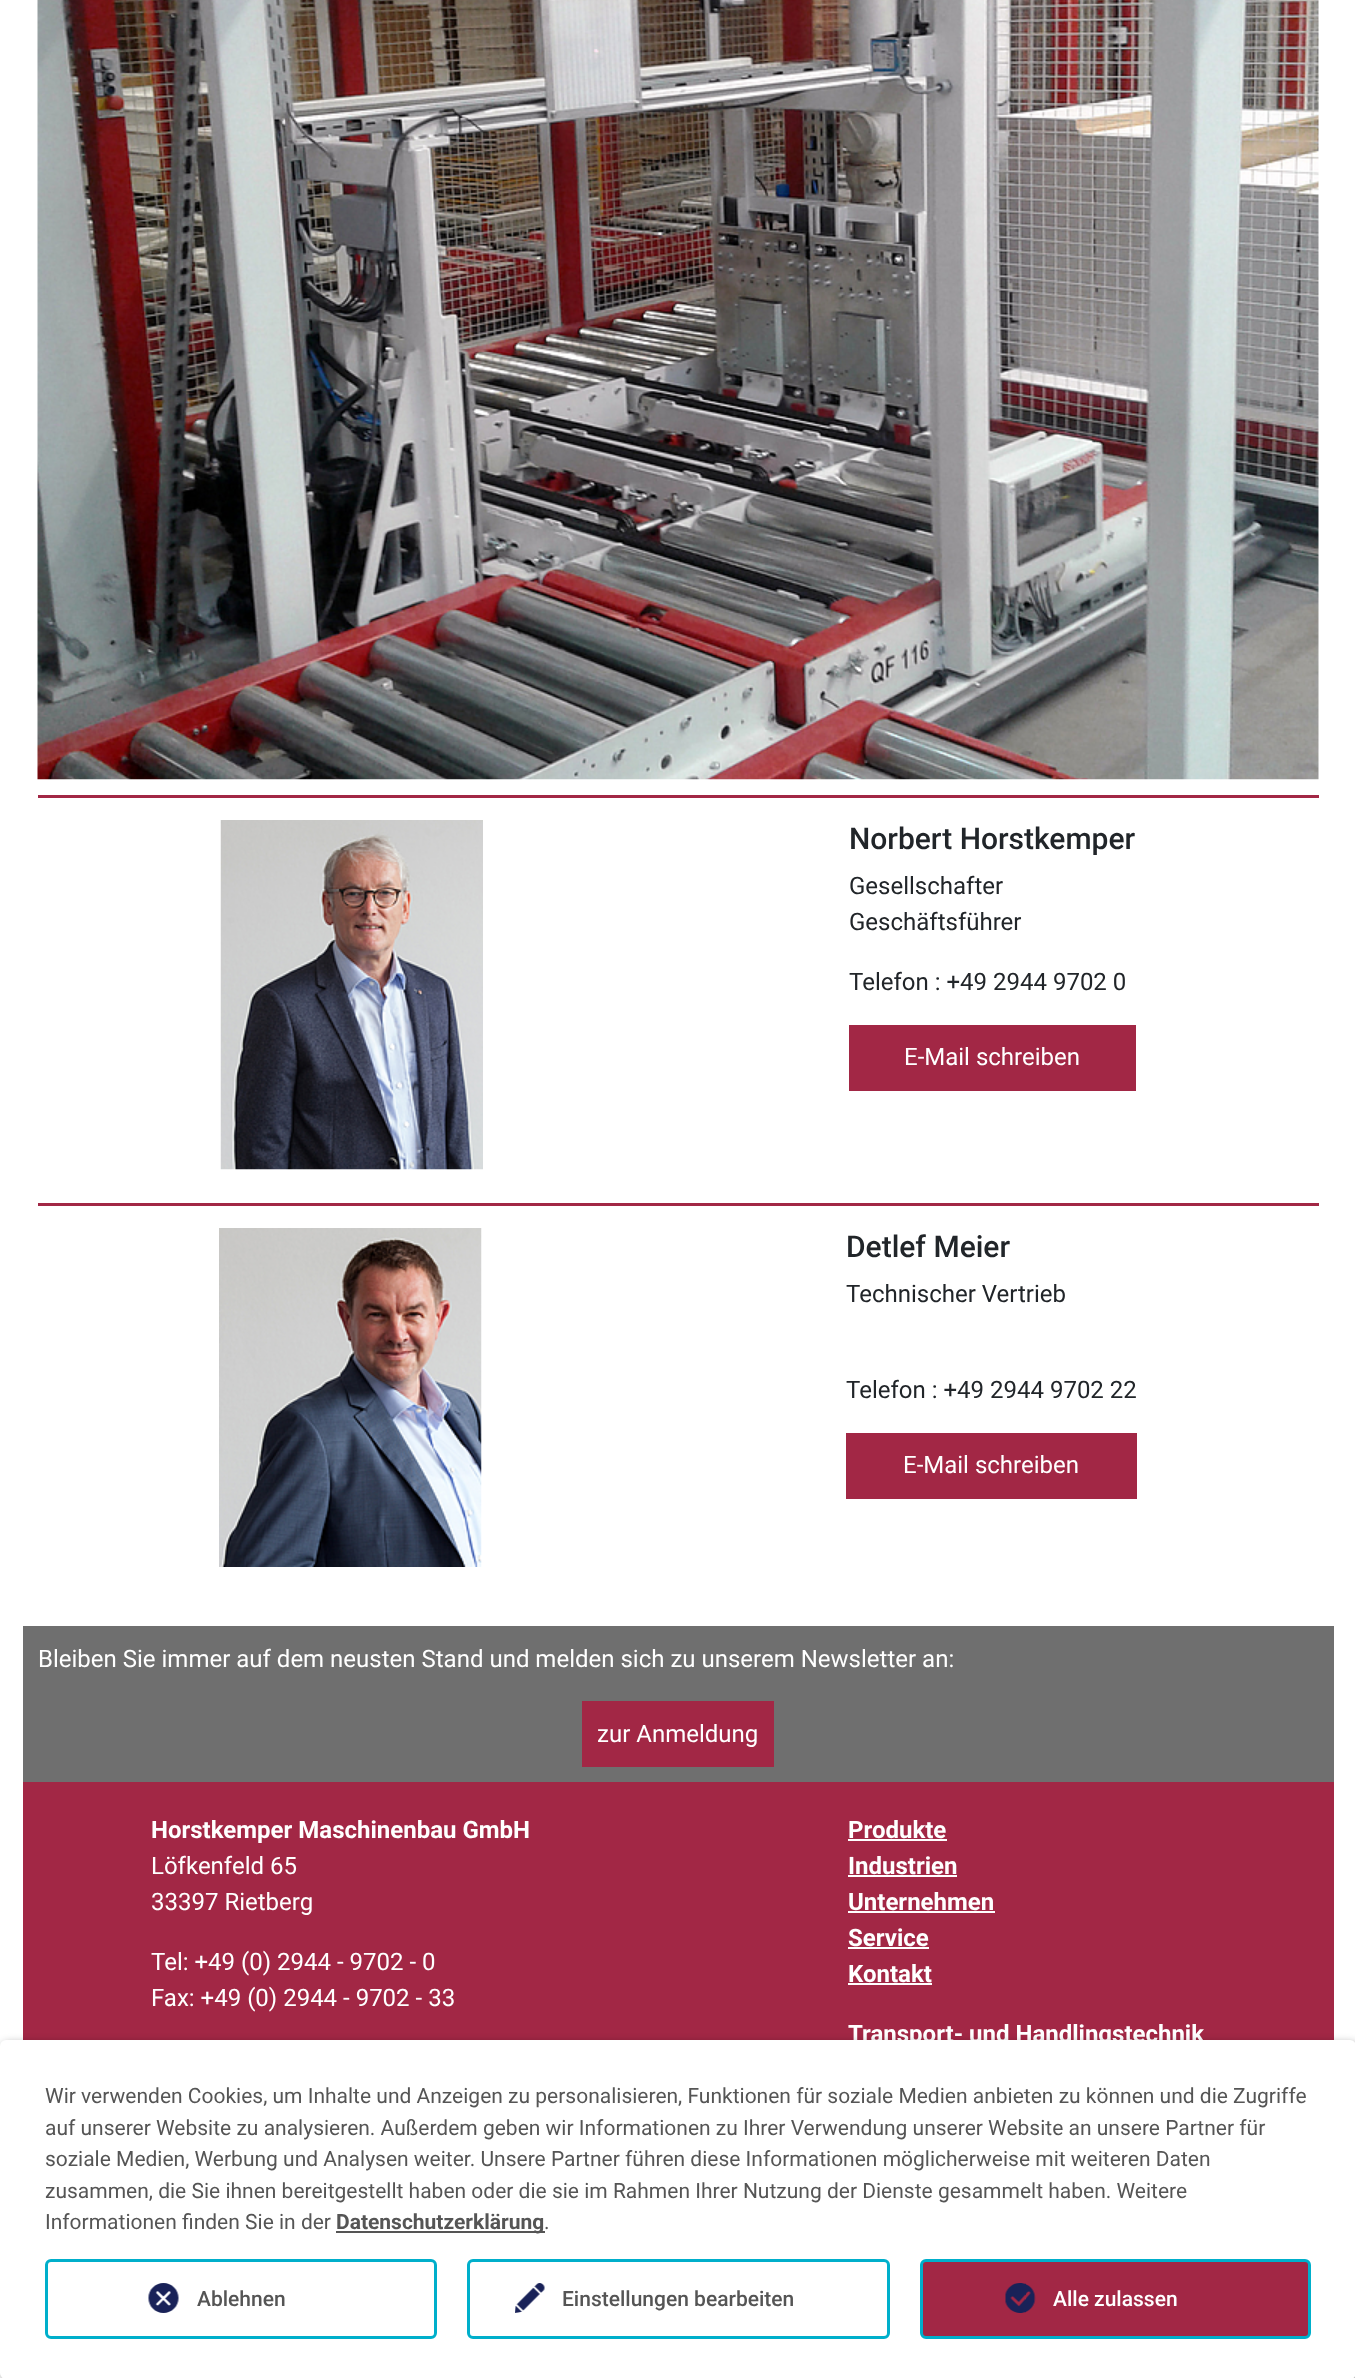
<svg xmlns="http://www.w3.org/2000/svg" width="1355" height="2378">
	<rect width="100%" height="100%" fill="#FFFFFF" />
	<image x="37" y="0" width="1282" height="780" href="assets/img1.png" />
	<rect x="38" y="795" width="1281" height="3" fill="#A22745" />
	<image x="220" y="820" width="263" height="350" href="assets/img2.png" />
	<text x="849" y="849" font-family="Roboto" font-size="30" font-weight="500" fill="#212529">Norbert Horstkemper</text>
	<g font-family="Roboto" font-size="24" fill="#212529">
		<text x="849" y="894">Gesellschafter</text>
		<text x="849" y="930">Geschäftsführer</text>
		<text x="849" y="990">Telefon : +49 2944 9702 0</text>
	</g>
	<rect x="849" y="1025" width="287" height="66" fill="#A22745" />
	<text x="904" y="1065" font-family="Roboto" font-size="24" fill="#FFFFFF">E-Mail schreiben</text>
	<rect x="38" y="1203" width="1281" height="3" fill="#A22745" />
	<image x="219" y="1228" width="263" height="339" href="assets/img3.png" />
	<text x="846" y="1257" font-family="Roboto" font-size="30" font-weight="500" fill="#212529">Detlef Meier</text>
	<g font-family="Roboto" font-size="24" fill="#212529">
		<text x="846" y="1302">Technischer Vertrieb</text>
		<text x="846" y="1398">Telefon : +49 2944 9702 22</text>
	</g>
	<rect x="846" y="1433" width="291" height="66" fill="#A22745" />
	<text x="903" y="1473" font-family="Roboto" font-size="24" fill="#FFFFFF">E-Mail schreiben</text>
	<rect x="23" y="1782" width="1311" height="258" fill="#A22745" />
	<rect x="23" y="1626" width="1311" height="156" fill="#6F6F6F" />
	<text x="38" y="1667" font-family="Roboto" font-size="24" fill="#FFFFFF">Bleiben Sie immer auf dem neusten Stand und melden sich zu unserem Newsletter an:</text>
	<rect x="582" y="1701" width="192" height="66" fill="#A22745" />
	<text x="597" y="1742" font-family="Roboto" font-size="24" fill="#FFFFFF">zur Anmeldung</text>
	<text x="151" y="1838" font-family="Roboto" font-size="24" font-weight="700" fill="#FFFFFF">Horstkemper Maschinenbau GmbH</text>
	<g font-family="Roboto" font-size="24" fill="#FFFFFF">
		<text x="151" y="1874">Löfkenfeld 65</text>
		<text x="151" y="1910">33397 Rietberg</text>
		<text x="151" y="1970">Tel: +49 (0) 2944 - 9702 - 0</text>
		<text x="151" y="2006">Fax: +49 (0) 2944 - 9702 - 33</text>
	</g>
	<text x="848" y="1838" font-family="Roboto" font-size="24" font-weight="700" fill="#FFFFFF">Produkte</text>
	<rect x="848" y="1839" width="99" height="2" fill="#FFFFFF" />
	<text x="848" y="1874" font-family="Roboto" font-size="24" font-weight="700" fill="#FFFFFF">Industrien</text>
	<rect x="848" y="1875" width="109" height="2" fill="#FFFFFF" />
	<text x="848" y="1910" font-family="Roboto" font-size="24" font-weight="700" fill="#FFFFFF">Unternehmen</text>
	<rect x="848" y="1911" width="147" height="2" fill="#FFFFFF" />
	<text x="848" y="1946" font-family="Roboto" font-size="24" font-weight="700" fill="#FFFFFF">Service</text>
	<rect x="848" y="1947" width="81" height="2" fill="#FFFFFF" />
	<text x="848" y="1982" font-family="Roboto" font-size="24" font-weight="700" fill="#FFFFFF">Kontakt</text>
	<rect x="848" y="1983" width="84" height="2" fill="#FFFFFF" />
	<text x="848" y="2042" font-family="Roboto" font-size="24" font-weight="700" fill="#FFFFFF">Transport- und Handlingstechnik</text>
	<rect x="2" y="2043" width="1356" height="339" rx="6" fill="#000000" fill-opacity="0.4" filter="blur(4px)" />
	<rect x="0" y="2040" width="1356" height="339" rx="6" fill="#FFFFFF" />
	<g font-family="'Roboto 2'" font-size="21" fill="#555555">
		<text x="45" y="2103">Wir verwenden Cookies, um Inhalte und Anzeigen zu personalisieren, Funktionen für soziale Medien anbieten zu können und die Zugriffe</text>
		<text x="45" y="2135">auf unserer Website zu analysieren. Außerdem geben wir Informationen zu Ihrer Verwendung unserer Website an unsere Partner für</text>
		<text x="45" y="2166">soziale Medien, Werbung und Analysen weiter. Unsere Partner führen diese Informationen möglicherweise mit weiteren Daten</text>
		<text x="45" y="2198">zusammen, die Sie ihnen bereitgestellt haben oder die sie im Rahmen Ihrer Nutzung der Dienste gesammelt haben. Weitere</text>
		<text x="45" y="2229">Informationen finden Sie in der</text>
	</g>
	<rect x="336" y="2231" width="209" height="2" fill="#555555" />
	<text x="336" y="2229" font-family="Roboto" font-size="21" font-weight="700" fill="#555555">Datenschutzerklärung</text>
	<text x="544" y="2229" font-family="'Roboto 2'" font-size="21" fill="#555555">.</text>
	<rect x="46.5" y="2260.5" width="389" height="77" rx="4.5" fill="none" stroke="#00AFCB" stroke-width="3" />
	<image x="148" y="2283" width="31" height="30" href="assets/img4.png" />
	<text x="197" y="2306" font-family="Roboto" font-size="21" font-weight="500" fill="#555555">Ablehnen</text>
	<rect x="921.5" y="2260.5" width="388" height="77" rx="4.5" fill="#A22745" stroke="#00AFCB" stroke-width="3" />
	<image x="1005" y="2283" width="31" height="30" href="assets/img5.png" />
	<text x="1053" y="2306" font-family="Roboto" font-size="21" font-weight="500" fill="#FFFFFF">Alle zulassen</text>
	<rect x="468.5" y="2260.5" width="420" height="77" rx="4.5" fill="none" stroke="#00AFCB" stroke-width="3" />
	<image x="515" y="2283" width="30" height="30" href="assets/img6.png" />
	<text x="562" y="2306" font-family="Roboto" font-size="21" font-weight="500" fill="#555555">Einstellungen bearbeiten</text>
</svg>
